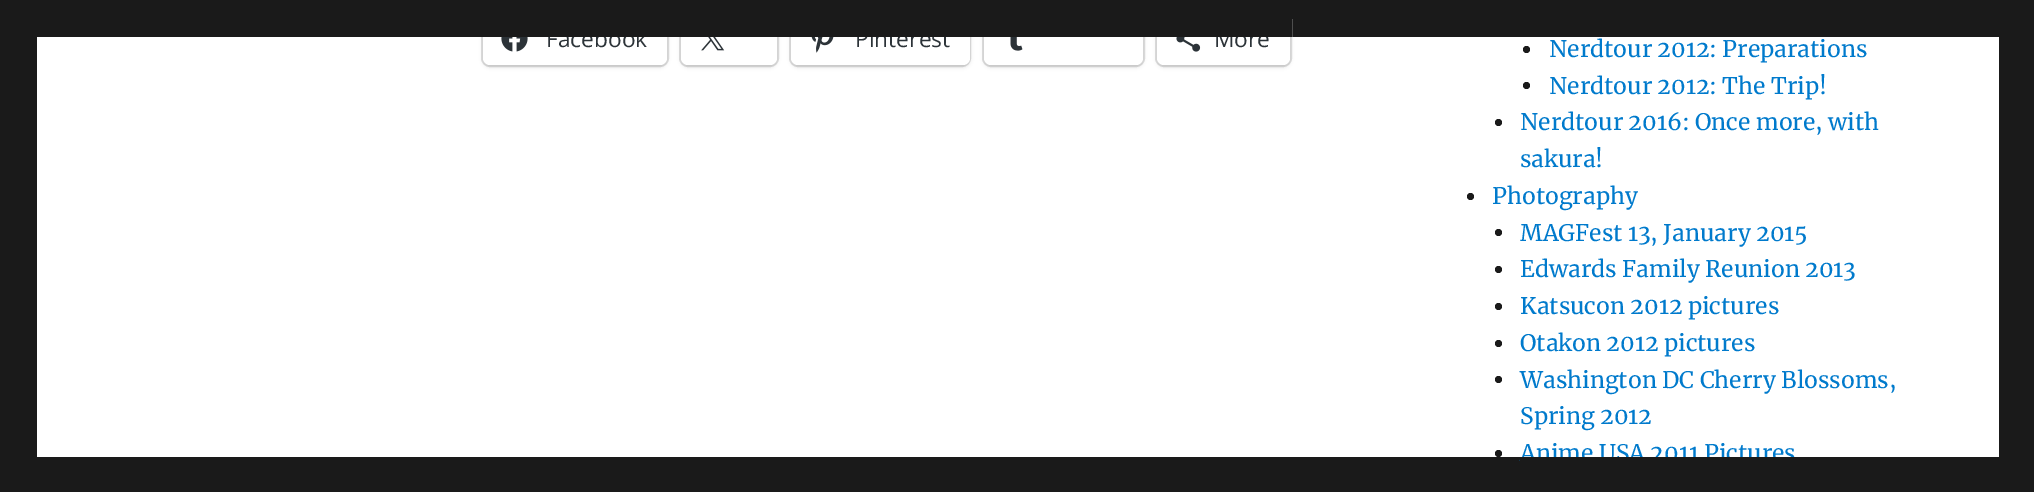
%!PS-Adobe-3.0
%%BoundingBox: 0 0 2034 492
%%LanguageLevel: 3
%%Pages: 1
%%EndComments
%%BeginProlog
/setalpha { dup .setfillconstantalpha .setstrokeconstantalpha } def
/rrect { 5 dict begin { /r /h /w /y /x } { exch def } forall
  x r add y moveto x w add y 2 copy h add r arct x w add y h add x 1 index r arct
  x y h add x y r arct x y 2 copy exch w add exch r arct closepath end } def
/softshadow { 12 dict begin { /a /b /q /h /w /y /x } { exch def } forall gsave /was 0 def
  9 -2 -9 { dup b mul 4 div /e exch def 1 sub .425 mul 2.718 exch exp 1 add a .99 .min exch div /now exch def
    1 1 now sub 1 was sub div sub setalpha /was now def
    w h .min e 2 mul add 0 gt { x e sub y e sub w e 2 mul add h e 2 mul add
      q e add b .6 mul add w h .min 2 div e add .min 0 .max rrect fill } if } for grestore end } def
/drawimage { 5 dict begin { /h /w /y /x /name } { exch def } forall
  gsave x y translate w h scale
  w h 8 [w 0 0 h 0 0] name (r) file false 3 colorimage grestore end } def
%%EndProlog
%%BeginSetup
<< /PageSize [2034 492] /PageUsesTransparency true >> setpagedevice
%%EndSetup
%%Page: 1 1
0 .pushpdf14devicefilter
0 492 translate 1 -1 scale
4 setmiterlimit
0.102 setgray
0 0 2034 492 rectfill
1 setgray
37 37 1962 420 rectfill
0.878 setgray
2 setlinewidth
482 12 186 54 8 rrect stroke
0 setgray
483 14 184 53 7 2 0.12 softshadow
1 setgray
483 12 184 53 7 rrect fill
(images/1.raw) 501 37 27 15 drawimage
0.878 setgray
680 12 98 54 8 rrect stroke
0 setgray
681 14 96 53 7 2 0.12 softshadow
1 setgray
681 12 96 53 7 rrect fill
(images/2.raw) 701 37 24 14 drawimage
0.878 setgray
790 12 180 54 8 rrect stroke
0 setgray
791 14 179 53 7 2 0.12 softshadow
1 setgray
791 12 179 53 7 rrect fill
(images/3.raw) 811 37 23 16 drawimage
0.878 setgray
983 12 161 54 8 rrect stroke
0 setgray
984 14 159 53 7 2 0.12 softshadow
1 setgray
984 12 159 53 7 rrect fill
(images/4.raw) 1010 37 13 14 drawimage
0.878 setgray
1156 12 135 54 8 rrect stroke
0 setgray
1157 14 133 53 7 2 0.12 softshadow
1 setgray
1157 12 133 53 7 rrect fill
(images/5.raw) 1176 37 25 15 drawimage
0.102 setgray
newpath 1526.5 49.5 3.5 0 360 arc closepath fill
newpath 1526.5 85.5 3.5 0 360 arc closepath fill
newpath 1498.5 122.5 3.5 0 360 arc closepath fill
newpath 1470.5 196.5 3.5 0 360 arc closepath fill
newpath 1498.5 232.5 3.5 0 360 arc closepath fill
newpath 1498.5 269.5 3.5 0 360 arc closepath fill
newpath 1498.5 306.5 3.5 0 360 arc closepath fill
newpath 1498.5 343.5 3.5 0 360 arc closepath fill
newpath 1498.5 379.5 3.5 0 360 arc closepath fill
newpath 1498.5 453.5 3.5 0 360 arc closepath fill
/OpenSans-Regular [22.75 0 0 -22.75 0 0] selectfont
0.173 0.2 0.22 setrgbcolor
546 47 moveto (Facebook) show
855 47 moveto (Pinterest) show
1214 47 moveto (More) show
0.102 setgray
481 11 811 26 rectfill
/Merriweather-Regular [22.75 0 0 -22.75 0 0] selectfont
0 0.478 0.8 setrgbcolor
1549 57 moveto (Nerdtour 2012: Preparations) show
1549 94 moveto (Nerdtour 2012: The Trip!) show
1520 130 moveto (Nerdtour 2016: Once more, with) show
1520 167 moveto (sakura!) show
1492 204 moveto (Photography) show
1520 241 moveto (MAGFest 13, January 2015) show
1520 277 moveto (Edwards Family Reunion 2013) show
1520 314 moveto (Katsucon 2012 pictures) show
1520 351 moveto (Otakon 2012 pictures) show
1520 388 moveto (Washington DC Cherry Blossoms,) show
1520 424 moveto (Spring 2012) show
1520 461 moveto (Anime USA 2011 Pictures) show
0.102 setgray
1520 457 276 5 rectfill
.poppdf14devicefilter showpage
%%EOF
